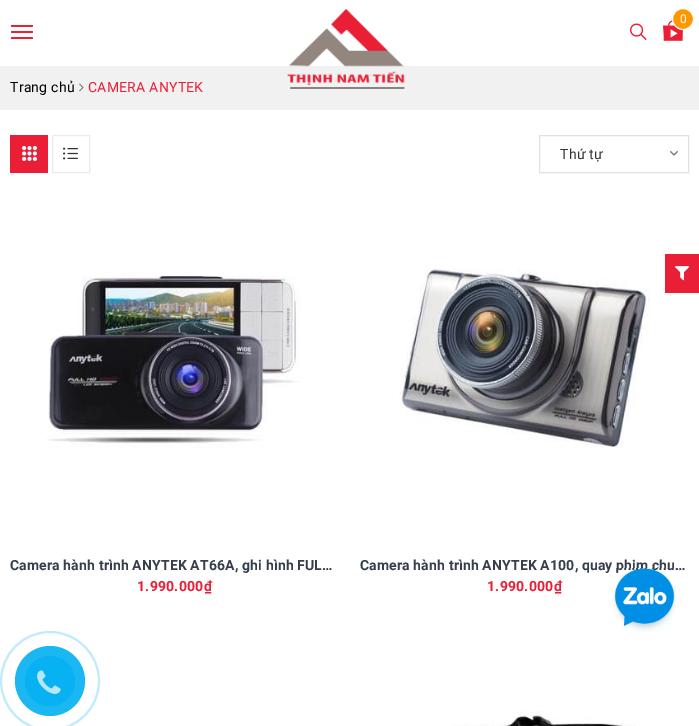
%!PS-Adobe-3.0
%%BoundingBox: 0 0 699 726
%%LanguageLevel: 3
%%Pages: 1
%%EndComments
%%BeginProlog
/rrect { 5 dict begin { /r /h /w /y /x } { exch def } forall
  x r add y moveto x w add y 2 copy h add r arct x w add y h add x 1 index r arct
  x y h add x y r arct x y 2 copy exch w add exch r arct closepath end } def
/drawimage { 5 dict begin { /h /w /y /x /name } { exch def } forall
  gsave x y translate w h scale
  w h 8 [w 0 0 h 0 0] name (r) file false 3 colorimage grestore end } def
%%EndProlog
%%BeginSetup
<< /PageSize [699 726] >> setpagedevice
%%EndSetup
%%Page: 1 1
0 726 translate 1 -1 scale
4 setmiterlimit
1 setgray
0 0 699 726 rectfill
0.945 setgray
0 66 699 44 rectfill
(images/1.raw) 287 9 118 80 drawimage
(images/2.raw) 663 20 21 21 drawimage
1 0.596 0 setrgbcolor
newpath 683 19 10.5 0 360 arc closepath gsave fill grestore
1 setgray
stroke
(images/3.raw) 630 23 17 17 drawimage
0.918 0.118 0.208 setrgbcolor
11 25 22 2 1 rrect fill
11 31 22 2 1 rrect fill
11 37 22 2 1 rrect fill
(images/4.raw) 79 83 5 9 drawimage
10 135 38 38 rectfill
(images/5.raw) 22 146 15 15 drawimage
0.922 setgray
52.5 135.5 37 37 rectstroke
(images/6.raw) 63 147 15 13 drawimage
(images/7.raw) 670 151 8 5 drawimage
0.882 setgray
539.5 135.5 149 37 rectstroke
(images/8.raw) 46 276 255 172 drawimage
(images/9.raw) 399 269 251 179 drawimage
(images/10.raw) 452 711 184 15 drawimage
0.918 0.118 0.208 setrgbcolor
665 254 34 39 rectfill
(images/11.raw) 675 266 15 15 drawimage
0.749 0.922 0.988 setrgbcolor
2 setlinewidth
newpath 50 681 49 0 360 arc closepath stroke
0.102 0.718 0.953 setrgbcolor
newpath 50 681 35 0 360 arc closepath fill
0.031 0.694 0.949 setrgbcolor
newpath 50 681 25 0 360 arc closepath fill
(images/13.raw) 37 670 24 24 drawimage
/Roboto-Regular [12 0 0 -12 0 0] selectfont
1 setgray
680 23 moveto 0.25 0 (0) ashow
/Roboto-Regular [14 0 0 -14 0 0] selectfont
0 setgray
10 92 moveto 0.25 0 (Trang chủ) ashow
0.918 0.118 0.208 setrgbcolor
88 92 moveto 0.25 0 (CAMERA ANYTEK) ashow
0.2 setgray
560 159 moveto 0.25 0 (Thứ tự) ashow
/Roboto-Bold [14 0 0 -14 0 0] selectfont
0.212 0.247 0.302 setrgbcolor
10 570 moveto 0.15 0 (Camera hành trình ANYTEK AT66A, ghi hình FUL…) ashow
0.918 0.118 0.208 setrgbcolor
137 591 moveto 0.25 0 (1.990.000₫) ashow
0.212 0.247 0.302 setrgbcolor
360 570 moveto 0.15 0 (Camera hành trình ANYTEK A100, quay phim chu…) ashow
0.918 0.118 0.208 setrgbcolor
487 591 moveto 0.25 0 (1.990.000₫) ashow
(images/12.raw) 613 568 63 64 drawimage
showpage
%%EOF
